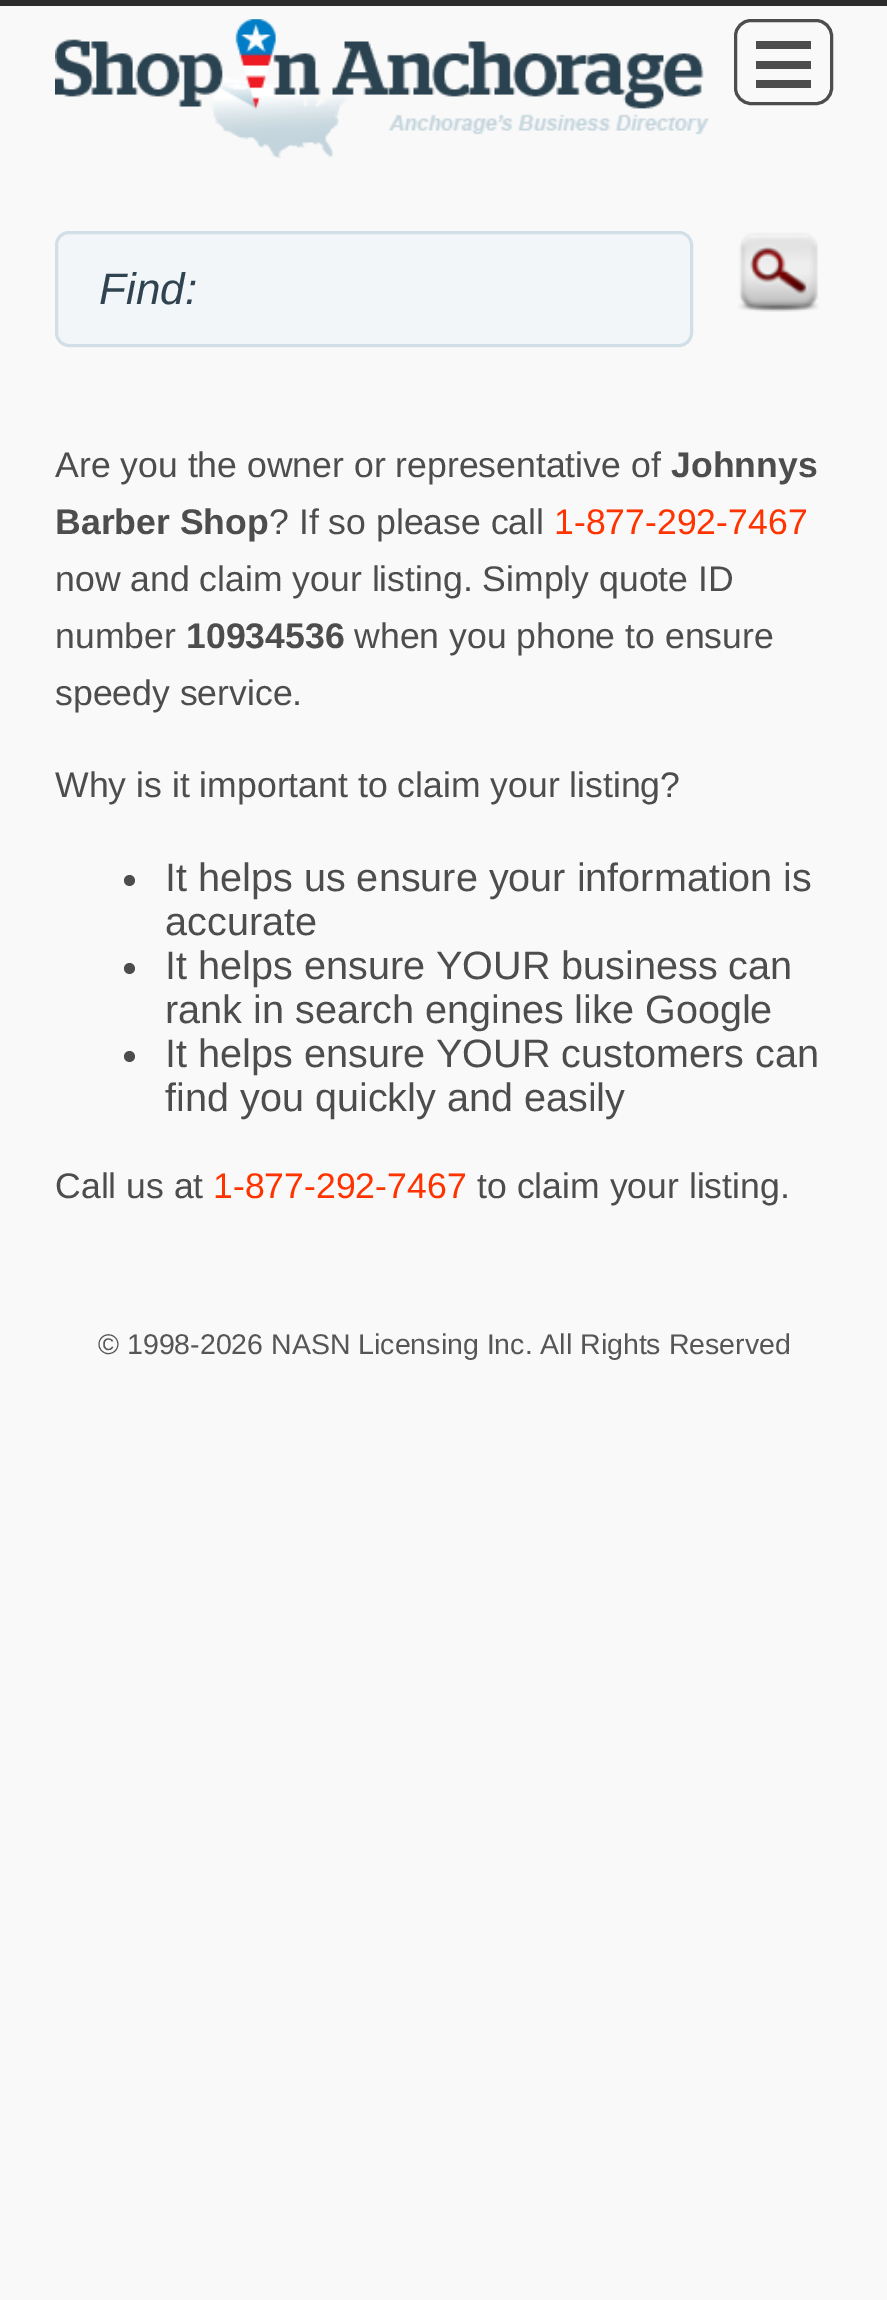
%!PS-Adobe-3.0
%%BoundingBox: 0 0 887 2300
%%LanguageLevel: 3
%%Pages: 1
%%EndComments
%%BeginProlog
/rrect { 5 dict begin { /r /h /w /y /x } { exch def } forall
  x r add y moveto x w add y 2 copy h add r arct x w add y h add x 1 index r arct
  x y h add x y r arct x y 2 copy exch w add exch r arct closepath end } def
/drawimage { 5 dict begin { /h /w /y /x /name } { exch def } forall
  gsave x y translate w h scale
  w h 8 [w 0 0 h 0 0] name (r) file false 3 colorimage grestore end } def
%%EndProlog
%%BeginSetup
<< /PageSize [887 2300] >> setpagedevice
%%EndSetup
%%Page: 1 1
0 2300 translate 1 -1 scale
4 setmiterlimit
0.976 setgray
0 0 887 2300 rectfill
0.176 setgray
0 0 887 6 rectfill
(images/1.raw) 55 19 654 139 drawimage
0.302 setgray
3 setlinewidth
735.5 20.5 96 83 15.5 rrect stroke
756 41 55 8 rectfill
756 61 55 8 rectfill
756 80 55 8 rectfill
0.949 0.965 0.973 setrgbcolor
56.5 232.5 635 113 12.5 rrect gsave fill grestore
0.824 0.875 0.906 setrgbcolor
stroke
(images/2.raw) 738 232 81 80 drawimage
0.302 setgray
newpath 129.5 880.5 5.5 0 360 arc closepath fill
newpath 129.5 968.5 5.5 0 360 arc closepath fill
newpath 129.5 1056.5 5.5 0 360 arc closepath fill
/LiberationSans-Italic [44 0 0 -44 0 0] selectfont
0.184 0.263 0.318 setrgbcolor
99 304 moveto (Find:) show
/LiberationSans-Regular [35.6 0 0 -35.6 0 0] selectfont
0.302 setgray
55 477 moveto (Are you the owner or representative of) show
/LiberationSans-Bold [35.6 0 0 -35.6 0 0] selectfont
671 477 moveto (Johnnys) show
55 534 moveto (Barber Shop) show
/LiberationSans-Regular [35.6 0 0 -35.6 0 0] selectfont
269 534 moveto (? If so please call) show
1 0.2 0 setrgbcolor
554 534 moveto (1-877-292-7467) show
0.302 setgray
55 591 moveto (now and claim your listing. Simply quote ID) show
55 648 moveto (number) show
/LiberationSans-Bold [35.6 0 0 -35.6 0 0] selectfont
186 648 moveto (10934536) show
/LiberationSans-Regular [35.6 0 0 -35.6 0 0] selectfont
354 648 moveto (when you phone to ensure) show
55 705 moveto (speedy service.) show
55 797 moveto (Why is it important to claim your listing?) show
/LiberationSans-Regular [39.6 0 0 -39.6 0 0] selectfont
165 891 moveto (It helps us ensure your information is) show
165 935 moveto (accurate) show
165 979 moveto (It helps ensure YOUR business can) show
165 1023 moveto (rank in search engines like Google) show
165 1067 moveto (It helps ensure YOUR customers can) show
165 1111 moveto (find you quickly and easily) show
/LiberationSans-Regular [35.6 0 0 -35.6 0 0] selectfont
55 1198 moveto (Call us at) show
1 0.2 0 setrgbcolor
213 1198 moveto (1-877-292-7467) show
0.302 setgray
477 1198 moveto (to claim your listing.) show
/LiberationSans-Regular [28.5 0 0 -28.5 0 0] selectfont
0.337 setgray
98 1354 moveto (© 1998-2026 NASN Licensing Inc. All Rights Reserved) show
showpage
%%EOF
